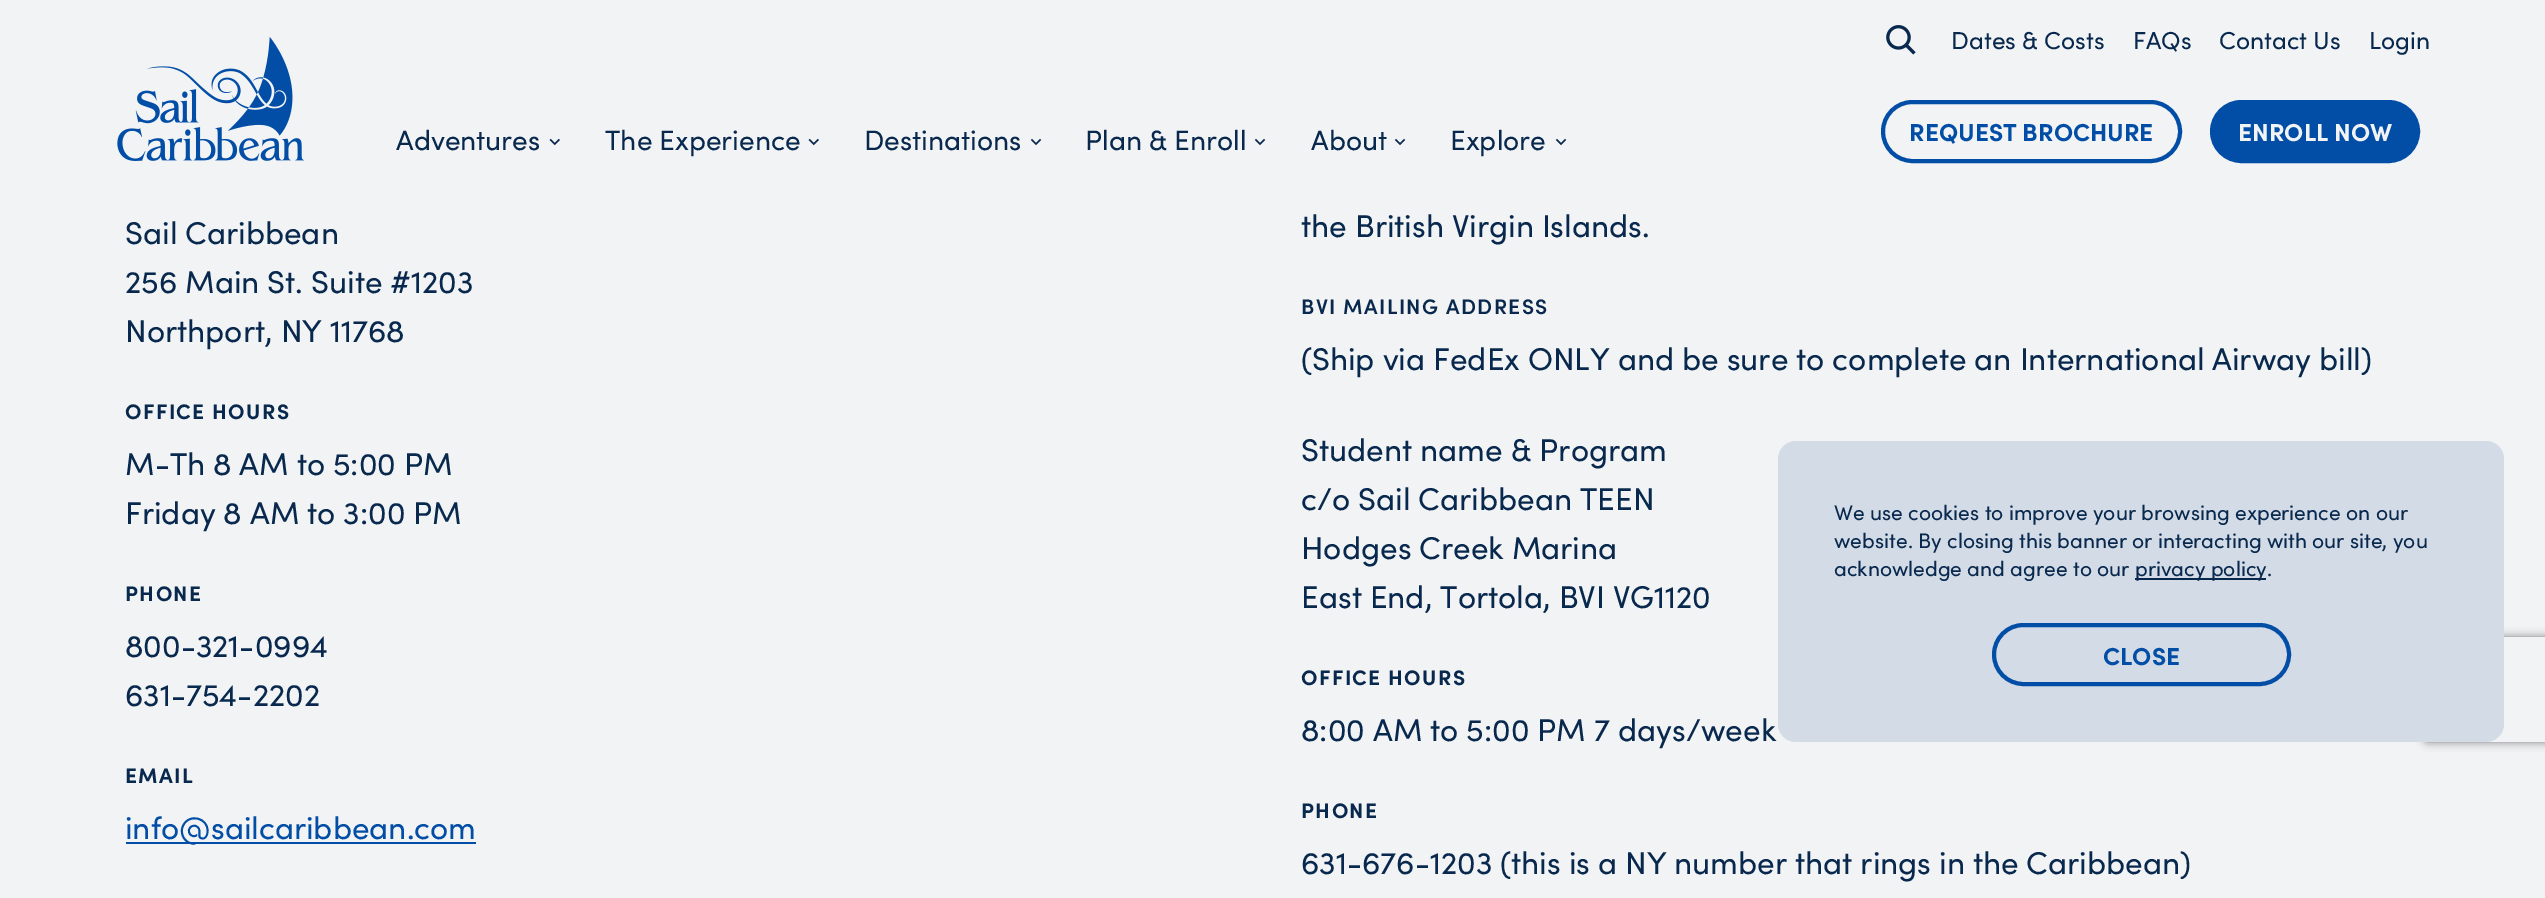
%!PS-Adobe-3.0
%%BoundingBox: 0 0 2545 898
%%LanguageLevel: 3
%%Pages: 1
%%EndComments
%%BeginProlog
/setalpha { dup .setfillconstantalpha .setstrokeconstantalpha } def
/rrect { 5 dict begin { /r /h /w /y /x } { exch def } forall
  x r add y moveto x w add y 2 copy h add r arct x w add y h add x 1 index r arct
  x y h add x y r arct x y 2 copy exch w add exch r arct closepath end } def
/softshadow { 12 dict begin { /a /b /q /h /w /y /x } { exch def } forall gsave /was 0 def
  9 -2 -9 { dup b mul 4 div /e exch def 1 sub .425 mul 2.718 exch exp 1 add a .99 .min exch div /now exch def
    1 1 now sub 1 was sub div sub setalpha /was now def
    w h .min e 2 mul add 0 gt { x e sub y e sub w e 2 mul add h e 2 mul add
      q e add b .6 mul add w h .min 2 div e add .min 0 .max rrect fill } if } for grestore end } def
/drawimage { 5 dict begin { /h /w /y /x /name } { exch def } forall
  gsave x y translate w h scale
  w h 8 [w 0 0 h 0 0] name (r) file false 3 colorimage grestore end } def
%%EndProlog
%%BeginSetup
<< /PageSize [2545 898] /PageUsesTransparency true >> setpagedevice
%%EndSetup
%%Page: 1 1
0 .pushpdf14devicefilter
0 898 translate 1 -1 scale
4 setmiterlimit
0.949 0.953 0.961 setrgbcolor
0 0 2545 898 rectfill
(images/1.raw) 117 37 187 124 drawimage
(images/2.raw) 549 138 11 8 drawimage
(images/2.raw) 808 138 11 8 drawimage
(images/3.raw) 1030 138 12 8 drawimage
(images/3.raw) 1254 138 12 8 drawimage
(images/3.raw) 1394 138 12 8 drawimage
(images/3.raw) 1555 138 12 8 drawimage
(images/4.raw) 1886 25 30 30 drawimage
0.008 0.302 0.647 setrgbcolor
4 setlinewidth
1883 102 297 59 29.5 rrect stroke
2212 102 206 59 29.5 rrect gsave fill grestore
stroke
126 842 350 2 rectfill
gsave
newpath 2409 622 moveto 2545 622 lineto 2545 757 lineto 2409 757 lineto closepath 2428 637 moveto 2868 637 lineto 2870 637 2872 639 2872 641 curveto 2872 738 lineto 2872 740 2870 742 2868 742 curveto 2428 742 lineto 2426 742 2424 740 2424 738 curveto 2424 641 lineto 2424 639 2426 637 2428 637 curveto closepath eoclip newpath
0.502 setgray
2424 637 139 105 4 4.5 1 softshadow
grestore
0.827 0.863 0.902 setrgbcolor
1778 441 726 301 18 rrect fill
0.031 0.157 0.302 setrgbcolor
2135 578 131 2 rectfill
0.008 0.302 0.647 setrgbcolor
1994 625 295 59 29.5 rrect stroke
/Sofia-Regular [28 0 0 -28 0 0] selectfont
0.031 0.157 0.302 setrgbcolor
396 150 moveto (Adventures) show
605 150 moveto (The Experience) show
864 150 moveto (Destinations) show
1085 150 moveto (Plan & Enroll) show
1311 150 moveto (About) show
1450 150 moveto (Explore) show
/Sofia-Regular [24.5 0 0 -24.5 0 0] selectfont
1951 49 moveto (Dates & Costs) show
2133 49 moveto (FAQs) show
2219 49 moveto (Contact Us) show
2369 49 moveto (Login) show
/Sofia-Bold [24.5 0 0 -24.5 0 0] selectfont
0.008 0.302 0.647 setrgbcolor
1909 141 moveto (REQUEST BROCHURE) show
0.949 0.953 0.961 setrgbcolor
2238 141 moveto (ENROLL NOW) show
/Sofia-Regular [31.5 0 0 -31.5 0 0] selectfont
0.031 0.157 0.302 setrgbcolor
125 244 moveto (Sail Caribbean) show
125 293 moveto (256 Main St. Suite #1203) show
125 342 moveto (Northport, NY 11768) show
/Sofia-Bold [21 0 0 -21 0 0] selectfont
125 419 moveto 1.4 0 (OFFICE HOURS) ashow
/Sofia-Regular [31.5 0 0 -31.5 0 0] selectfont
125 475 moveto (M-Th 8 AM to 5:00 PM) show
125 524 moveto (Friday 8 AM to 3:00 PM) show
/Sofia-Bold [21 0 0 -21 0 0] selectfont
125 601 moveto 1.4 0 (PHONE) ashow
/Sofia-Regular [31.5 0 0 -31.5 0 0] selectfont
125 657 moveto (800-321-0994) show
125 706 moveto (631-754-2202) show
/Sofia-Bold [21 0 0 -21 0 0] selectfont
125 783 moveto 1.4 0 (EMAIL) ashow
/Sofia-Regular [31.5 0 0 -31.5 0 0] selectfont
0.008 0.302 0.647 setrgbcolor
125 839 moveto (info@sailcaribbean.com) show
0.031 0.157 0.302 setrgbcolor
1301 237 moveto (the British Virgin Islands.) show
/Sofia-SemiBold [21 0 0 -21 0 0] selectfont
1301 314 moveto 1.4 0 (BVI MAILING ADDRESS) ashow
/Sofia-Regular [31.5 0 0 -31.5 0 0] selectfont
1301 370 moveto (\(Ship via FedEx ONLY and be sure to complete an International Airway bill\)) show
1301 461 moveto (Student name & Program) show
1301 510 moveto (c/o Sail Caribbean TEEN) show
1301 559 moveto (Hodges Creek Marina) show
1301 608 moveto (East End, Tortola, BVI VG1120) show
/Sofia-Bold [21 0 0 -21 0 0] selectfont
1301 685 moveto 1.4 0 (OFFICE HOURS) ashow
/Sofia-Regular [31.5 0 0 -31.5 0 0] selectfont
1301 741 moveto (8:00 AM to 5:00 PM 7 days/week) show
/Sofia-Bold [21 0 0 -21 0 0] selectfont
1301 818 moveto 1.4 0 (PHONE) ashow
/Sofia-Regular [31.5 0 0 -31.5 0 0] selectfont
1301 874 moveto (631-676-1203 \(this is a NY number that rings in the Caribbean\)) show
/Sofia-Regular [21 0 0 -21 0 0] selectfont
1834 520 moveto (We use cookies to improve your browsing experience on our) show
1834 548 moveto (website. By closing this banner or interacting with our site, you) show
1834 576 moveto (acknowledge and agree to our) show
2135 576 moveto (privacy policy.) show
/Sofia-Bold [24.5 0 0 -24.5 0 0] selectfont
0.008 0.302 0.647 setrgbcolor
2103 665 moveto (CLOSE) show
.poppdf14devicefilter showpage
%%EOF
